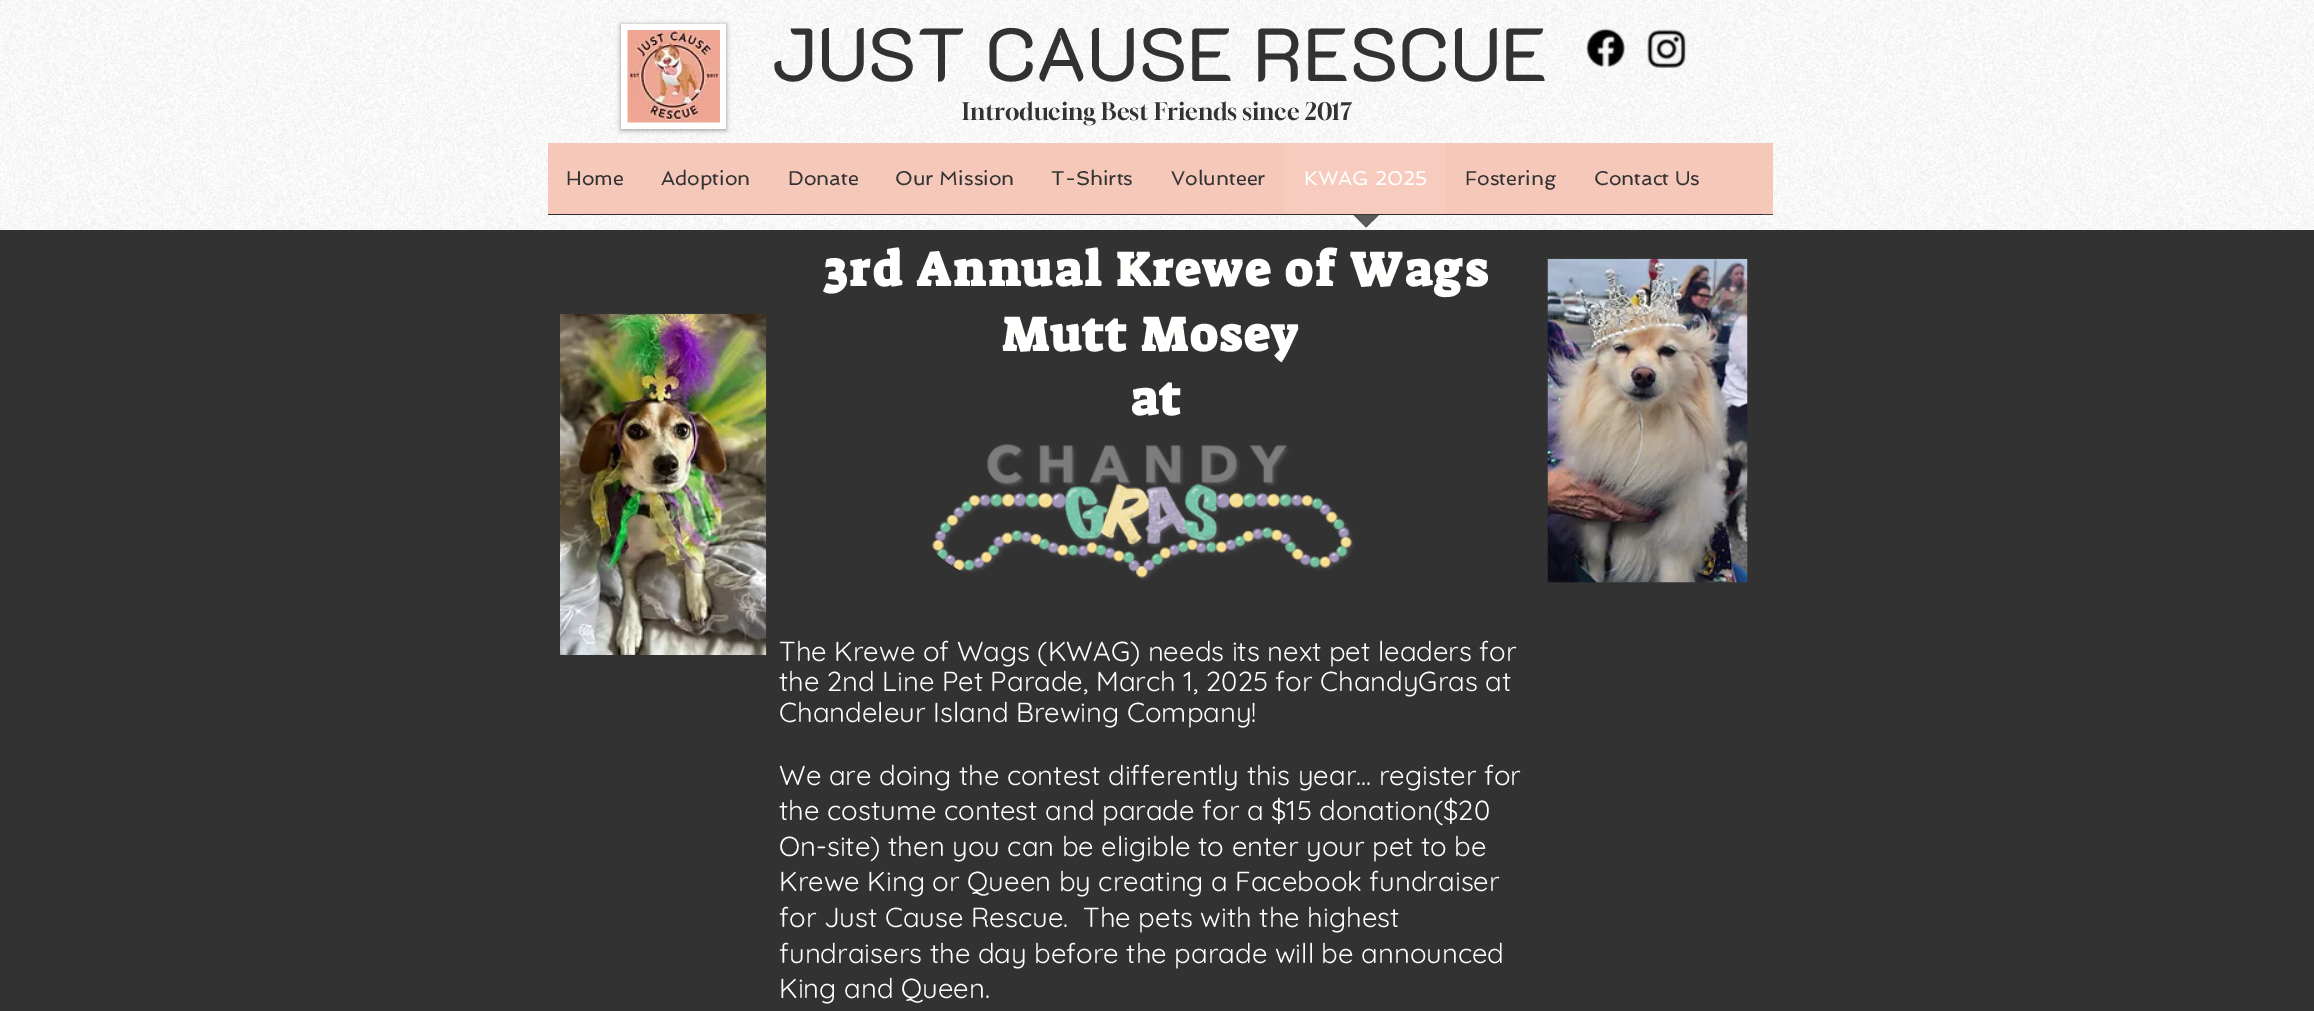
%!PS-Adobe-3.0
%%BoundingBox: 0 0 2314 1011
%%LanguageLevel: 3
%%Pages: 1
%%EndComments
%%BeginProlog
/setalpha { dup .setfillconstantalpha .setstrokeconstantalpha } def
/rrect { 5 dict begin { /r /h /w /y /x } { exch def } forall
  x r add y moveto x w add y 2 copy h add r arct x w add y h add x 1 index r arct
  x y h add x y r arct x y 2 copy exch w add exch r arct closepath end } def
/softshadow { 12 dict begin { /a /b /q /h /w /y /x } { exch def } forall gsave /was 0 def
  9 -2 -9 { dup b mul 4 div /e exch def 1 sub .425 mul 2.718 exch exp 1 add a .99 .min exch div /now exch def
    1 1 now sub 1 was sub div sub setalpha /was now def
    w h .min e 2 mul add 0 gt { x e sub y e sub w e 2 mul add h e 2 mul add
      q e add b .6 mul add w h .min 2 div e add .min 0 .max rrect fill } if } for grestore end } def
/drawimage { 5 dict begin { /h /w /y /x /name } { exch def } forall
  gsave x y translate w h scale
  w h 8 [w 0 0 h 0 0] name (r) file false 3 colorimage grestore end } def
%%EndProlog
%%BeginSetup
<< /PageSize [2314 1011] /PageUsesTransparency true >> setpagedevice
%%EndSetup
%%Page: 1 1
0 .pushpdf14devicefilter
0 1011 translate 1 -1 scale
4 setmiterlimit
0.196 setgray
0 0 2314 1011 rectfill
1 setgray
0 0 2314 230 rectfill
(images/1.raw) 0 0 2314 230 drawimage
0 setgray
621 25 105 105 0 2.5 0.4 softshadow
1 setgray
621 24 105 105 rectfill
(images/2.raw) 627 30 93 93 drawimage
(images/3.raw) 1586 28 40 39 drawimage
(images/4.raw) 1647 29 39 39 drawimage
0.965 0.784 0.729 setrgbcolor
548 143 1225 71 rectfill
0.302 0.271 0.259 setrgbcolor
1763 214 10 1 rectfill
0.184 0.176 0.176 setrgbcolor
548 214 1215 1 rectfill
0.969 0.8 0.749 setrgbcolor
1285 143 161 71 rectfill
0.82 setalpha
0.157 setgray
newpath 1352.5 214 moveto 1380 214 lineto 1366 227.5 lineto closepath fill
0.07 setalpha
1 setgray
newpath 1354 214 moveto 1379 214 lineto 1366 226 lineto closepath fill
1 setalpha
(images/5.raw) 560 313 207 342 drawimage
(images/6.raw) 1547 258 201 325 drawimage
(images/7.raw) 932 443 423 137 drawimage
/K2D-Regular [75 0 0 -75 0 0] selectfont
0.196 setgray
771 81 moveto (JUST CAUSE RESCUE) show
/Gloock-Regular [23.75 0 0 -23.75 0 0] selectfont
962 120 moveto (Introducing Best Friends since 2017) show
/Spinnaker-Regular [20 0 0 -20 0 0] selectfont
566 185 moveto (Home) show
661 185 moveto (Adoption) show
788 185 moveto (Donate) show
895 185 moveto (Our Mission) show
1051 185 moveto (T-Shirts) show
1171 185 moveto (Volunteer) show
1 1 0.996 setrgbcolor
1304 185 moveto (KWAG 2025) show
0.196 setgray
1465 185 moveto (Fostering) show
1594 185 moveto (Contact Us) show
/SuezOne-Bold [48.75 0 0 -48.75 0 0] selectfont
1 1 0.996 setrgbcolor
824 286 moveto 2.4 0 (3rd Annual Krewe of Wags) ashow
1002 351 moveto 2.4 0 (Mutt Mosey) ashow
1131 415 moveto 2.4 0 (at) ashow
/Quicksand-Regular [27.5 0 0 -27.5 0 0] selectfont
779 661 moveto (The Krewe of Wags \(KWAG\) needs its next pet leaders for) show
779 691 moveto (the 2nd Line Pet Parade, March 1, 2025 for ChandyGras at) show
779 722 moveto (Chandeleur Island Brewing Company!) show
779 785 moveto (We are doing the contest differently this year... register for) show
779 820 moveto (the costume contest and parade for a $15 donation\($20) show
779 856 moveto (On-site\) then you can be eligible to enter your pet to be) show
779 891 moveto (Krewe King or Queen by creating a Facebook fundraiser) show
779 927 moveto (for Just Cause Rescue.  The pets with the highest) show
779 963 moveto (fundraisers the day before the parade will be announced) show
779 998 moveto (King and Queen.) show
.poppdf14devicefilter showpage
%%EOF
